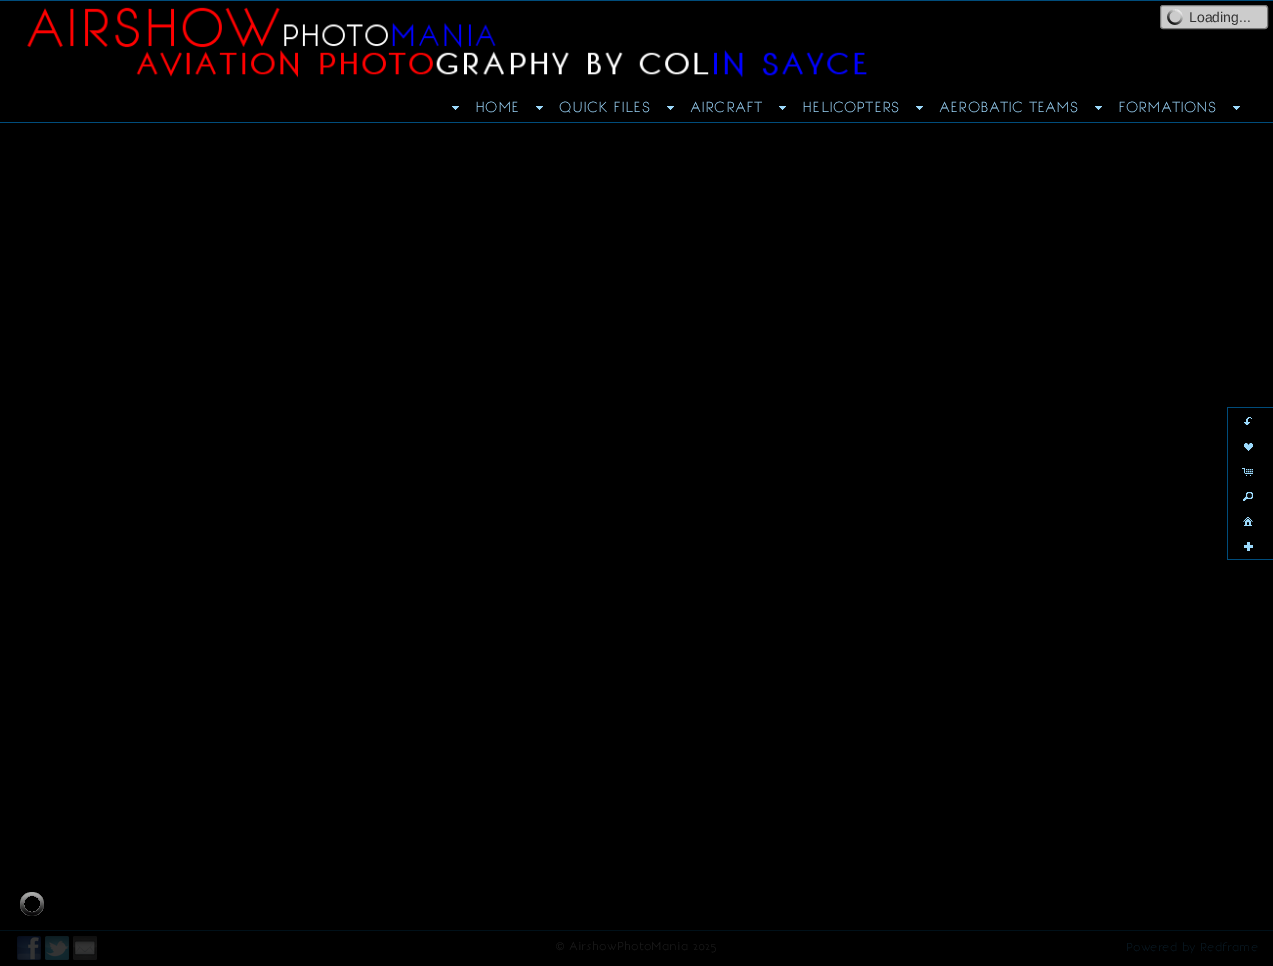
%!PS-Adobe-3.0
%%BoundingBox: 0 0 1273 966
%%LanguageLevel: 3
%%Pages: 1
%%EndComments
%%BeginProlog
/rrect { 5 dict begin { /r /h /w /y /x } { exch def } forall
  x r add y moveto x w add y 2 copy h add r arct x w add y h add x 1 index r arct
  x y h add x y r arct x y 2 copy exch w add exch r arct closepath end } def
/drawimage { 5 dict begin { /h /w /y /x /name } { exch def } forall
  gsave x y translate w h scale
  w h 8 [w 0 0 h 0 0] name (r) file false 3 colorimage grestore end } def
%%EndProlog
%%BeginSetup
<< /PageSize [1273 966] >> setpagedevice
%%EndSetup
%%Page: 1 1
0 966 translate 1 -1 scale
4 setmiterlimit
0 setgray
0 0 1273 966 rectfill
0.8 setgray
1160.5 5.5 107 23 2.5 rrect gsave fill grestore
0.478 setgray
stroke
(images/1.raw) 1167 9 16 16 drawimage
0 0.298 0.482 setrgbcolor
0 0 1273 1 rectfill
0 122 1273 1 rectfill
(images/2.raw) 27 7 840 71 drawimage
(images/3.raw) 452 106 7 4 drawimage
(images/3.raw) 536 106 7 4 drawimage
(images/3.raw) 667 106 7 4 drawimage
(images/3.raw) 779 106 7 4 drawimage
(images/3.raw) 916 106 7 4 drawimage
(images/3.raw) 1095 106 7 4 drawimage
(images/3.raw) 1233 106 7 4 drawimage
0 0.063 0.098 setrgbcolor
0 930 1273 1 rectfill
(images/4.raw) 17 936 24 24 drawimage
(images/5.raw) 45 936 24 24 drawimage
(images/6.raw) 73 936 24 24 drawimage
0 0.298 0.482 setrgbcolor
1227 407 46 1 rectfill
1227 559 46 1 rectfill
1227 407 1 153 rectfill
(images/7.raw) 1244 417 8 8 drawimage
(images/8.raw) 1244 443 9 8 drawimage
(images/9.raw) 1242 468 11 8 drawimage
(images/10.raw) 1243 492 10 9 drawimage
(images/11.raw) 1243 517 10 9 drawimage
(images/12.raw) 1244 542 9 9 drawimage
(images/13.raw) 20 892 24 24 drawimage
/LiberationSans-Regular [14 0 0 -14 0 0] selectfont
0.2 setgray
1189 22 moveto (Loading...) show
/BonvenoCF-Light [14 0 0 -14 0 0] selectfont
0.624 0.855 1 setrgbcolor
475 112 moveto (HOME) show
559 112 moveto (QUICK FILES) show
690 112 moveto (AIRCRAFT) show
802 112 moveto (HELICOPTERS) show
939 112 moveto (AEROBATIC TEAMS) show
1118 112 moveto (FORMATIONS) show
/LiberationSans-Regular [11 0 0 -11 0 0] selectfont
0.122 setgray
556 950 moveto (©) show
/BonvenoCF-Light [11 0 0 -11 0 0] selectfont
569 950 moveto (AirshowPhotoMania 2025) show
0.039 0.11 0.153 setrgbcolor
1126 951 moveto (Powered by Redframe) show
showpage
%%EOF
